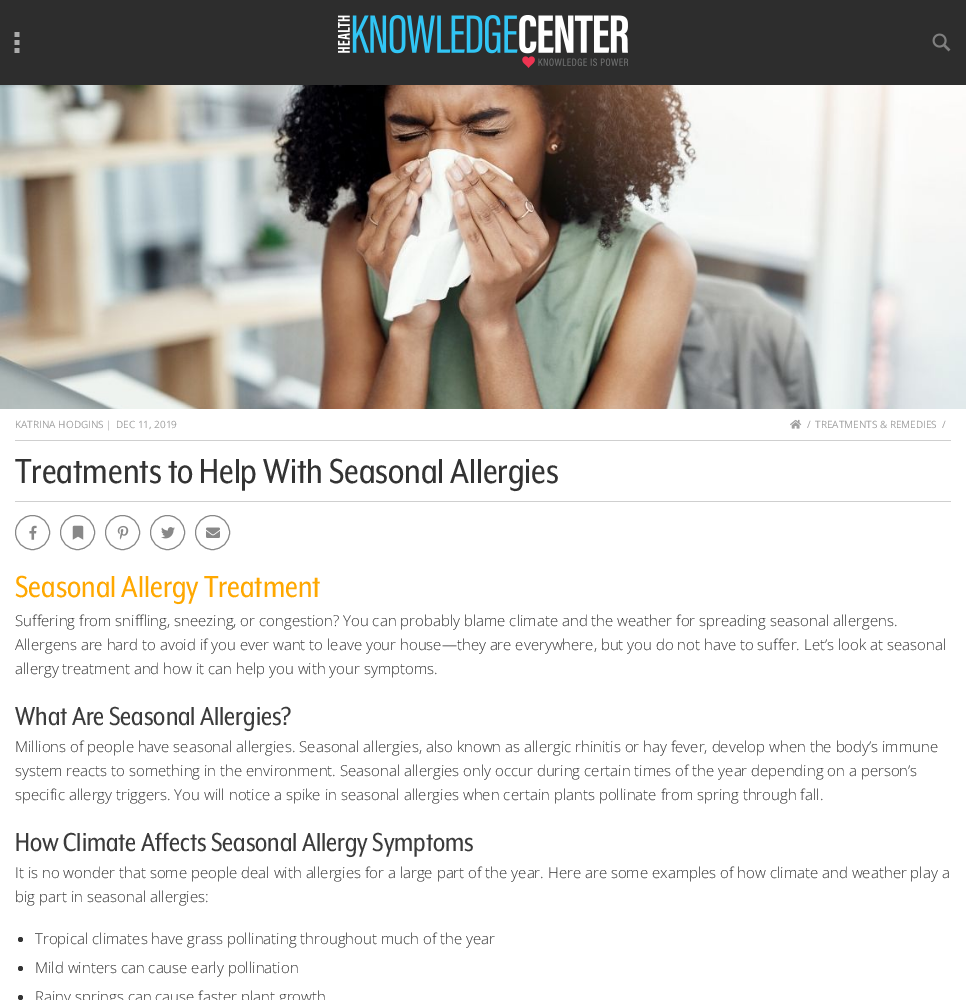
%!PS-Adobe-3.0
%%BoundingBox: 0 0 966 1000
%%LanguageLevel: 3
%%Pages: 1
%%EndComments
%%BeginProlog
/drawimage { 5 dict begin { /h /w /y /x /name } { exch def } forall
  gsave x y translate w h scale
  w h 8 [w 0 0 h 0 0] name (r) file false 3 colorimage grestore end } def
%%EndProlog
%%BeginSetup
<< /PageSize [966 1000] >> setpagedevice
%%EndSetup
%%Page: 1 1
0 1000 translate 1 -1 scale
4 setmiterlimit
1 setgray
0 0 966 1000 rectfill
0.176 setgray
0 0 966 85 rectfill
(images/1.raw) 14 32 6 21 drawimage
(images/2.raw) 338 15 290 53 drawimage
(images/3.raw) 932 33 19 19 drawimage
(images/4.raw) 0 85 966 324 drawimage
(images/5.raw) 790 419 12 10 drawimage
0.812 setgray
15 440 936 1 rectfill
15 501 936 1 rectfill
0.533 setgray
newpath 32.5 532.5 17 0 360 arc closepath stroke
(images/6.raw) 29 525 8 15 drawimage
newpath 77.5 532.5 17 0 360 arc closepath stroke
(images/7.raw) 72 525 12 15 drawimage
newpath 122.5 532.5 17 0 360 arc closepath stroke
(images/8.raw) 117 525 12 15 drawimage
newpath 167.5 532.5 17 0 360 arc closepath stroke
(images/9.raw) 161 527 14 12 drawimage
newpath 212.5 532.5 17 0 360 arc closepath stroke
(images/10.raw) 206 527 14 11 drawimage
0.2 setgray
newpath 20.5 939.5 2.5 0 360 arc closepath fill
newpath 20.5 968.5 2.5 0 360 arc closepath fill
newpath 20.5 997.5 2.5 0 360 arc closepath fill
/OpenSans-Regular [10 0 0 -10 0 0] selectfont
0.624 setgray
15 428 moveto (KATRINA HODGINS) show
106 428 moveto (|) show
116 428 moveto (DEC 11, 2019) show
807 428 moveto (/) show
815 428 moveto (TREATMENTS & REMEDIES) show
942 428 moveto (/) show
/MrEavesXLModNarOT-Regular [40 0 0 -40 0 0] selectfont
0.2 setgray
15 483 moveto (Treatments to Help With Seasonal Allergies) show
/MrEavesXLModNarOT-Regular [35 0 0 -35 0 0] selectfont
1 0.659 0 setrgbcolor
15 597 moveto (Seasonal Allergy Treatment) show
/OpenSans-Light [15 0 0 -15 0 0] selectfont
0.2 setgray
15 626 moveto (Suffering from sniffling, sneezing, or congestion? You can probably blame climate and the weather for spreading seasonal allergens.) show
15 650 moveto (Allergens are hard to avoid if you ever want to leave your house—they are everywhere, but you do not have to suffer. Let’s look at seasonal) show
15 674 moveto (allergy treatment and how it can help you with your symptoms.) show
/MrEavesXLModNarOT-Regular [30 0 0 -30 0 0] selectfont
0.231 setgray
15 725 moveto (What Are Seasonal Allergies?) show
/OpenSans-Light [15 0 0 -15 0 0] selectfont
0.2 setgray
15 752 moveto (Millions of people have seasonal allergies. Seasonal allergies, also known as allergic rhinitis or hay fever, develop when the body’s immune) show
15 776 moveto (system reacts to something in the environment. Seasonal allergies only occur during certain times of the year depending on a person’s) show
15 800 moveto (specific allergy triggers. You will notice a spike in seasonal allergies when certain plants pollinate from spring through fall.) show
/MrEavesXLModNarOT-Regular [30 0 0 -30 0 0] selectfont
0.231 setgray
15 851 moveto (How Climate Affects Seasonal Allergy Symptoms) show
/OpenSans-Light [15 0 0 -15 0 0] selectfont
0.2 setgray
15 878 moveto (It is no wonder that some people deal with allergies for a large part of the year. Here are some examples of how climate and weather play a) show
15 902 moveto (big part in seasonal allergies:) show
35 944 moveto (Tropical climates have grass pollinating throughout much of the year) show
35 973 moveto (Mild winters can cause early pollination) show
35 1002 moveto (Rainy springs can cause faster plant growth) show
showpage
%%EOF
